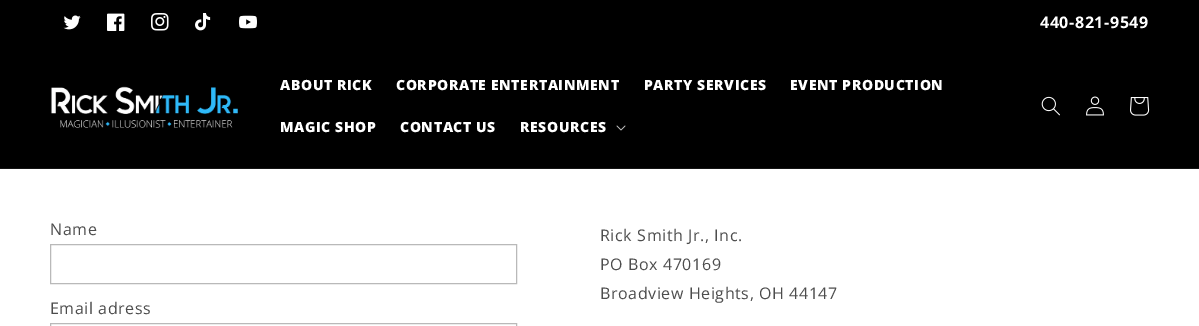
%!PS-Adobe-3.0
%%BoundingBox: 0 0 1199 326
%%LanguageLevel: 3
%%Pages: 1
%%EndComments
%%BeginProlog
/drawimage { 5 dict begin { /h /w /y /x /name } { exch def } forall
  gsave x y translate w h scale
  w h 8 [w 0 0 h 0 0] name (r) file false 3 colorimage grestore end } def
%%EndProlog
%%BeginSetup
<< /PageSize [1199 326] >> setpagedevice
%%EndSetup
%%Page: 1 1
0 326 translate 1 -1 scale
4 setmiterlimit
1 setgray
0 0 1199 326 rectfill
0 setgray
0 0 1199 168 rectfill
(images/1.raw) 63 15 18 15 drawimage
(images/2.raw) 107 13 18 18 drawimage
(images/3.raw) 151 13 18 18 drawimage
(images/4.raw) 195 13 16 18 drawimage
(images/5.raw) 239 15 18 14 drawimage
0.078 setgray
0 168 1199 1 rectfill
(images/6.raw) 50 86 188 42 drawimage
(images/7.raw) 616 125 10 6 drawimage
(images/8.raw) 1041 96 19 20 drawimage
(images/9.raw) 1086 96 18 20 drawimage
(images/10.raw) 1130 97 20 19 drawimage
0.725 setgray
50.5 244.5 466 39 rectstroke
50.5 323.5 466 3 rectstroke
/OpenSans-Bold [16 0 0 -16 0 0] selectfont
1 setgray
1040 28 moveto 0.6 0 (440-821-9549) ashow
/OpenSans-ExtraBold [14 0 0 -14 0 0] selectfont
280 90 moveto 0.6 0 (ABOUT RICK) ashow
396 90 moveto 0.6 0 (CORPORATE ENTERTAINMENT) ashow
644 90 moveto 0.6 0 (PARTY SERVICES) ashow
790 90 moveto 0.6 0 (EVENT PRODUCTION) ashow
280 132 moveto 0.6 0 (MAGIC SHOP) ashow
400 132 moveto 0.6 0 (CONTACT US) ashow
520 132 moveto 0.6 0 (RESOURCES) ashow
/OpenSans-Regular [16 0 0 -16 0 0] selectfont
0.302 setgray
50 235 moveto 0.6 0 (Name) ashow
50 314 moveto 0.6 0 (Email adress) ashow
600 241 moveto 0.6 0 (Rick Smith Jr., Inc.) ashow
600 270 moveto 0.6 0 (PO Box 470169) ashow
600 299 moveto 0.6 0 (Broadview Heights, OH 44147) ashow
showpage
%%EOF
